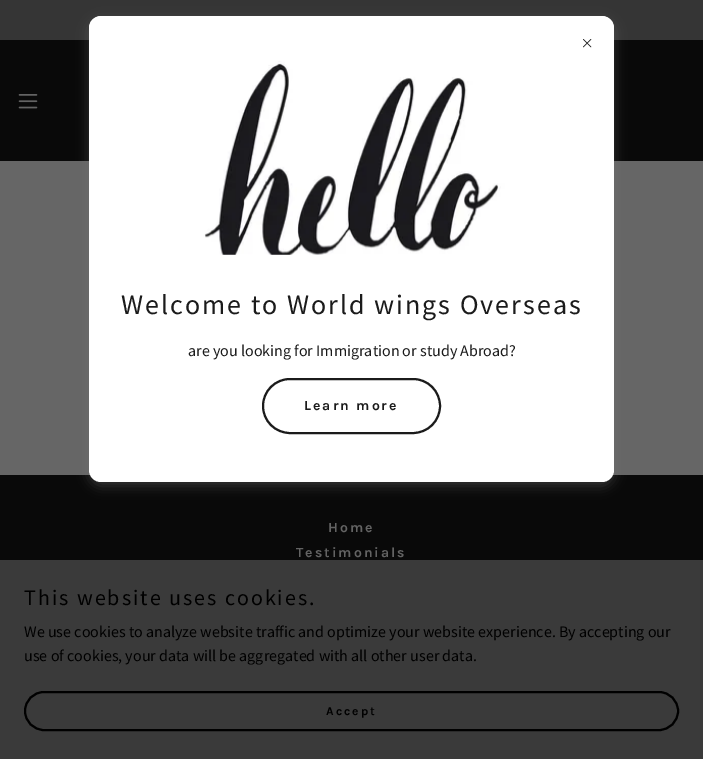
%!PS-Adobe-3.0
%%BoundingBox: 0 0 703 759
%%LanguageLevel: 3
%%Pages: 1
%%EndComments
%%BeginProlog
/setalpha { dup .setfillconstantalpha .setstrokeconstantalpha } def
/rrect { 5 dict begin { /r /h /w /y /x } { exch def } forall
  x r add y moveto x w add y 2 copy h add r arct x w add y h add x 1 index r arct
  x y h add x y r arct x y 2 copy exch w add exch r arct closepath end } def
/softshadow { 12 dict begin { /a /b /q /h /w /y /x } { exch def } forall gsave /was 0 def
  9 -2 -9 { dup b mul 4 div /e exch def 1 sub .425 mul 2.718 exch exp 1 add a .99 .min exch div /now exch def
    1 1 now sub 1 was sub div sub setalpha /was now def
    w h .min e 2 mul add 0 gt { x e sub y e sub w e 2 mul add h e 2 mul add
      q e add b .6 mul add w h .min 2 div e add .min 0 .max rrect fill } if } for grestore end } def
/drawimage { 5 dict begin { /h /w /y /x /name } { exch def } forall
  gsave x y translate w h scale
  w h 8 [w 0 0 h 0 0] name (r) file false 3 colorimage grestore end } def
%%EndProlog
%%BeginSetup
<< /PageSize [703 759] /PageUsesTransparency true >> setpagedevice
%%EndSetup
%%Page: 1 1
0 .pushpdf14devicefilter
0 759 translate 1 -1 scale
4 setmiterlimit
0.035 setgray
0 0 703 759 rectfill
0.208 setgray
0 0 703 40 rectfill
(images/1.raw) 18 94 20 15 drawimage
0.4 setgray
0 161 703 314 rectfill
0.459 setgray
89 20 525 466 12 6 0.4 softshadow
1 setgray
89 16 525 466 12 rrect fill
(images/3.raw) 89 16 525 239 drawimage
(images/2.raw) 583 39 9 9 drawimage
0.106 setgray
2 setlinewidth
263 379 177 54 27 rrect stroke
0.227 setgray
0 560 703 199 rectfill
0 setgray
25 692 653 38 19 rrect stroke
/SourceSansPro-Regular [28 0 0 -28 0 0] selectfont
0.106 setgray
121 314 moveto 2 0 (Welcome to World wings Overseas) ashow
/SourceSansPro-Regular [16 0 0 -16 0 0] selectfont
188 356 moveto (are you looking for Immigration or study Abroad?) show
/Karla-Bold [14 0 0 -14 0 0] selectfont
304 410 moveto 2 0 (Learn more) ashow
0.388 setgray
328 532 moveto 2 0 (Home) ashow
296 557 moveto 2 0 (Testimonials) ashow
/SourceSansPro-Regular [22 0 0 -22 0 0] selectfont
0 setgray
24 605 moveto 2 0 (This website uses cookies.) ashow
/SourceSansPro-Regular [16 0 0 -16 0 0] selectfont
24 637 moveto (We use cookies to analyze website traffic and optimize your website experience. By accepting our) show
24 661 moveto (use of cookies, your data will be aggregated with all other user data.) show
/Karla-Bold [12 0 0 -12 0 0] selectfont
326 715 moveto 2 0 (Accept) ashow
.poppdf14devicefilter showpage
%%EOF
